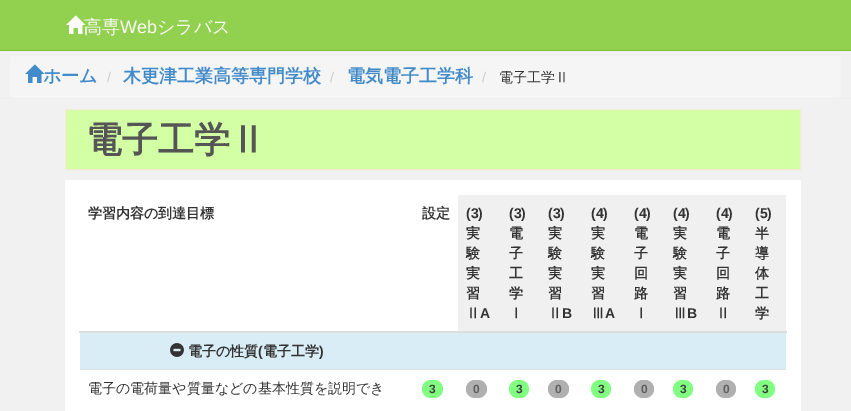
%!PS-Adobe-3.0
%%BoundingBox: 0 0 851 411
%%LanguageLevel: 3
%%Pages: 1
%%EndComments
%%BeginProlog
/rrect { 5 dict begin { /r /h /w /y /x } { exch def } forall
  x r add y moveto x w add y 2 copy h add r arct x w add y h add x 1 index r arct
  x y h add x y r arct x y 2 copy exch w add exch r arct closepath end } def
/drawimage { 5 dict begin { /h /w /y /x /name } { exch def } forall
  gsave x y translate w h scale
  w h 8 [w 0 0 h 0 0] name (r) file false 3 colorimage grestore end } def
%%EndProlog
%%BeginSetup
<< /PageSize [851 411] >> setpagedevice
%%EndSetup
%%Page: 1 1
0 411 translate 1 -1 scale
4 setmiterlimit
0.945 setgray
0 0 851 411 rectfill
0.573 0.816 0.314 setrgbcolor
0 0 851 50 rectfill
0.486 0.749 0.2 setrgbcolor
0 50 851 1 rectfill
0.933 setgray
0 98 851 1 rectfill
0.961 setgray
10 56 831 42 4 rrect fill
0.827 1 0.647 setrgbcolor
newpath 65.5 109.5 moveto 800.5 109.5 lineto 800.5 169.5 lineto 65.5 169.5 lineto closepath gsave fill grestore
0.945 0.925 0.824 setrgbcolor
stroke
1 setgray
65 180 736 231 rectfill
0.941 setgray
458 195 328 136 rectfill
0.867 setgray
79 331 708 2 rectfill
0.851 0.929 0.969 setrgbcolor
80 333 706 36 rectfill
(images/3.raw) 170 343 14 14 drawimage
0.502 1 0.502 setrgbcolor
422 380 21 18 9 rrect fill
0.69 setgray
466 380 21 18 9 rrect fill
0.502 1 0.502 setrgbcolor
509 380 20 18 9 rrect fill
0.69 setgray
548 380 21 18 9 rrect fill
0.502 1 0.502 setrgbcolor
591 380 20 18 9 rrect fill
0.69 setgray
634 380 20 18 9 rrect fill
0.502 1 0.502 setrgbcolor
673 380 20 18 9 rrect fill
0.69 setgray
716 380 20 18 9 rrect fill
0.867 setgray
80 369 706 1 rectfill
0.502 1 0.502 setrgbcolor
755 380 20 18 9 rrect fill
/WenQuanYiZenHei-Medium [18 0 0 -18 0 0] selectfont
0.988 0.984 0.976 setrgbcolor
84 33 moveto (高専) show
(images/1.raw) 66 15 20 19 drawimage
/LiberationSans-Regular [18 0 0 -18 0 0] selectfont
120 33 moveto (Web) show
/WenQuanYiZenHei-Medium [18 0 0 -18 0 0] selectfont
157 33 moveto (シラバス) show
/WenQuanYiZenHei-Bold [18 0 0 -18 0 0] selectfont
0.259 0.545 0.792 setrgbcolor
43 82 moveto (ホーム) show
(images/2.raw) 25 64 20 19 drawimage
/LiberationSans-Regular [14 0 0 -14 0 0] selectfont
0.8 setgray
107 82 moveto (/) show
/WenQuanYiZenHei-Bold [18 0 0 -18 0 0] selectfont
0.259 0.545 0.792 setrgbcolor
123 82 moveto (木更津工業高等専門学校) show
/LiberationSans-Regular [14 0 0 -14 0 0] selectfont
0.8 setgray
330 82 moveto (/) show
/WenQuanYiZenHei-Bold [18 0 0 -18 0 0] selectfont
0.259 0.545 0.792 setrgbcolor
347 82 moveto (電気電子工学科) show
/LiberationSans-Regular [14 0 0 -14 0 0] selectfont
0.8 setgray
482 82 moveto (/) show
/WenQuanYiZenHei-Medium [14 0 0 -14 0 0] selectfont
0.2 setgray
499 82 moveto (電子工学Ⅱ) show
/WenQuanYiZenHei-Bold [36 0 0 -36 0 0] selectfont
0.333 setgray
86 152 moveto (電子工学Ⅱ) show
/WenQuanYiZenHei-Bold [14 0 0 -14 0 0] selectfont
0.2 setgray
88 218 moveto (学習内容の到達目標) show
422 218 moveto (設定) show
/LiberationSans-Bold [14 0 0 -14 0 0] selectfont
466 218 moveto (\(3\)) show
/WenQuanYiZenHei-Bold [14 0 0 -14 0 0] selectfont
466 238 moveto (実) show
466 258 moveto (験) show
466 278 moveto (実) show
466 298 moveto (習) show
466 318 moveto (Ⅱ) show
/LiberationSans-Bold [14 0 0 -14 0 0] selectfont
480 318 moveto (A) show
509 218 moveto (\(3\)) show
/WenQuanYiZenHei-Bold [14 0 0 -14 0 0] selectfont
509 238 moveto (電) show
509 258 moveto (子) show
509 278 moveto (工) show
509 298 moveto (学) show
509 318 moveto (Ⅰ) show
/LiberationSans-Bold [14 0 0 -14 0 0] selectfont
548 218 moveto (\(3\)) show
/WenQuanYiZenHei-Bold [14 0 0 -14 0 0] selectfont
548 238 moveto (実) show
548 258 moveto (験) show
548 278 moveto (実) show
548 298 moveto (習) show
548 318 moveto (Ⅱ) show
/LiberationSans-Bold [14 0 0 -14 0 0] selectfont
562 318 moveto (B) show
591 218 moveto (\(4\)) show
/WenQuanYiZenHei-Bold [14 0 0 -14 0 0] selectfont
591 238 moveto (実) show
591 258 moveto (験) show
591 278 moveto (実) show
591 298 moveto (習) show
591 318 moveto (Ⅲ) show
/LiberationSans-Bold [14 0 0 -14 0 0] selectfont
605 318 moveto (A) show
634 218 moveto (\(4\)) show
/WenQuanYiZenHei-Bold [14 0 0 -14 0 0] selectfont
634 238 moveto (電) show
634 258 moveto (子) show
634 278 moveto (回) show
634 298 moveto (路) show
634 318 moveto (Ⅰ) show
/LiberationSans-Bold [14 0 0 -14 0 0] selectfont
673 218 moveto (\(4\)) show
/WenQuanYiZenHei-Bold [14 0 0 -14 0 0] selectfont
673 238 moveto (実) show
673 258 moveto (験) show
673 278 moveto (実) show
673 298 moveto (習) show
673 318 moveto (Ⅲ) show
/LiberationSans-Bold [14 0 0 -14 0 0] selectfont
687 318 moveto (B) show
716 218 moveto (\(4\)) show
/WenQuanYiZenHei-Bold [14 0 0 -14 0 0] selectfont
716 238 moveto (電) show
716 258 moveto (子) show
716 278 moveto (回) show
716 298 moveto (路) show
716 318 moveto (Ⅱ) show
/LiberationSans-Bold [14 0 0 -14 0 0] selectfont
755 218 moveto (\(5\)) show
/WenQuanYiZenHei-Bold [14 0 0 -14 0 0] selectfont
755 238 moveto (半) show
755 258 moveto (導) show
755 278 moveto (体) show
755 298 moveto (工) show
755 318 moveto (学) show
188 356 moveto (電子の性質) show
/LiberationSans-Bold [14 0 0 -14 0 0] selectfont
258 356 moveto (\() show
/WenQuanYiZenHei-Bold [14 0 0 -14 0 0] selectfont
263 356 moveto (電子工学) show
/LiberationSans-Bold [14 0 0 -14 0 0] selectfont
319 356 moveto (\)) show
/WenQuanYiZenHei-Medium [14 0 0 -14 0 0] selectfont
88 393 moveto (電子の電荷量や質量などの基本性質を説明でき) show
/LiberationSans-Bold [12 0 0 -12 0 0] selectfont
0.251 setgray
429 393 moveto (3) show
0.376 setgray
473 393 moveto (0) show
0.251 setgray
516 393 moveto (3) show
0.376 setgray
555 393 moveto (0) show
0.251 setgray
598 393 moveto (3) show
0.376 setgray
641 393 moveto (0) show
0.251 setgray
680 393 moveto (3) show
0.376 setgray
723 393 moveto (0) show
0.251 setgray
762 393 moveto (3) show
showpage
%%EOF
